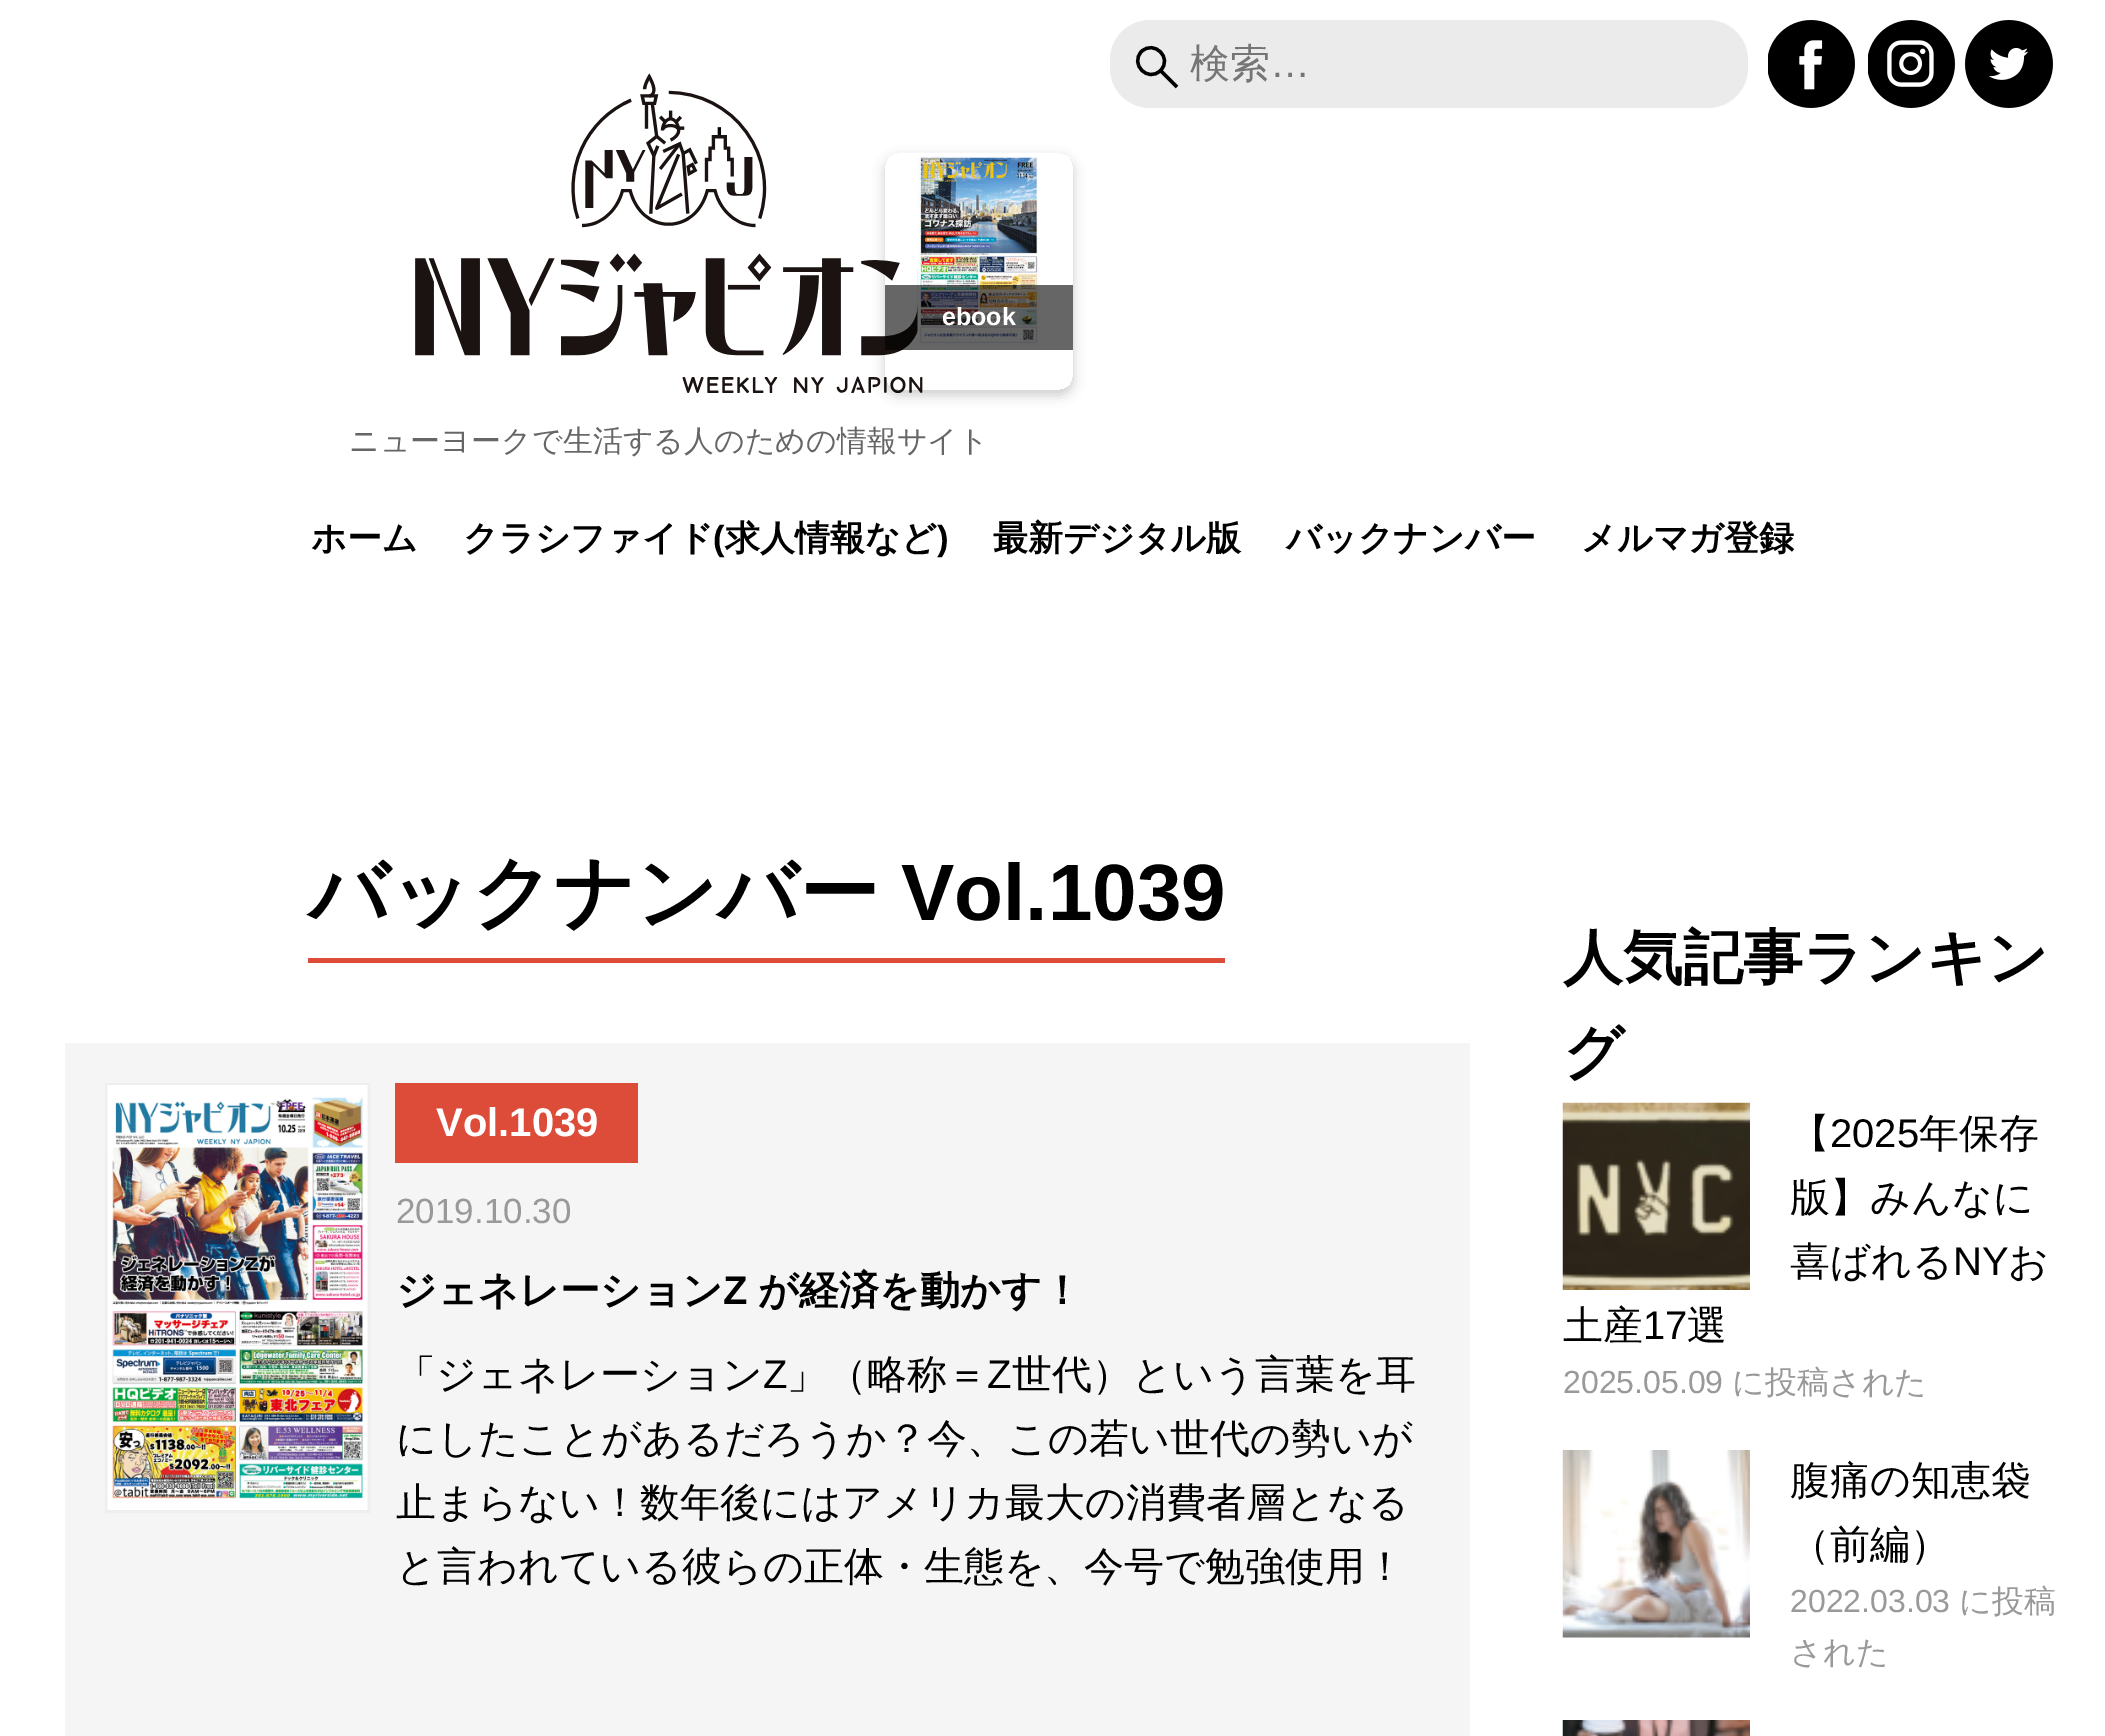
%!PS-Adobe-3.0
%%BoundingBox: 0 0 2105 1736
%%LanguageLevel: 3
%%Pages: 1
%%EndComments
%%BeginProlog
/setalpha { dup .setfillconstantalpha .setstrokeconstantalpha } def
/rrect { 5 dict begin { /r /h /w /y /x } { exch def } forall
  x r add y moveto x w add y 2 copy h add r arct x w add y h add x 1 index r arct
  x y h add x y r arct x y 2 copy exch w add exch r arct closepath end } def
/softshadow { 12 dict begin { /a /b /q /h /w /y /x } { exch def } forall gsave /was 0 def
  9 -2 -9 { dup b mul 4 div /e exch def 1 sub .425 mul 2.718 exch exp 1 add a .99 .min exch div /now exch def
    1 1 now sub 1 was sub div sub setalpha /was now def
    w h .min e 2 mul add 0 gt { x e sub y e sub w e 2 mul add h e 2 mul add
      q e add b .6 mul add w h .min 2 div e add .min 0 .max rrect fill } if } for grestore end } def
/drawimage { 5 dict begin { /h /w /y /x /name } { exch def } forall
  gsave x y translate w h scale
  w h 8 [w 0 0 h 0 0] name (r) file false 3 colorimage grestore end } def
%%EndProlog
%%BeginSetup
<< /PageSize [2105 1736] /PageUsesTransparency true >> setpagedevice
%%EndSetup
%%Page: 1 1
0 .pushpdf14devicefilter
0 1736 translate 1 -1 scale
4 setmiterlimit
1 setgray
0 0 2105 1736 rectfill
0.922 setgray
1110 20 638 88 40 rrect fill
0 setgray
3.3 setlinewidth
newpath 1141.5 51.5 moveto 1154 39.5 1173 58 1160.5 70.5 curveto 1148 83 1129.5 64 1141.5 51.5 curveto closepath 1161 71 moveto 1177 87 lineto stroke
(images/1.raw) 1768 20 87 88 drawimage
(images/2.raw) 1868 20 87 88 drawimage
(images/3.raw) 1965 20 88 88 drawimage
(images/5.raw) 415 73 508 320 drawimage
gsave
newpath 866 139 moveto 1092 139 lineto 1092 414 lineto 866 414 lineto closepath 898 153 moveto 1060 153 lineto 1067 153 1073 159 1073 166 curveto 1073 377 lineto 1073 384 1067 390 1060 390 curveto 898 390 lineto 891 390 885 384 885 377 curveto 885 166 lineto 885 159 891 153 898 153 curveto closepath eoclip newpath
885 158 188 237 13 6 0.2 softshadow
grestore
(images/4.raw) 917 156 123 190 drawimage
0.6 setalpha
885 285 188 65 rectfill
1 setalpha
0.867 0.294 0.224 setrgbcolor
308 958 917 5 rectfill
0.961 setgray
65 1043 1405 693 rectfill
0.933 setgray
3 setlinewidth
106.5 1084.5 262 427 rectstroke
(images/6.raw) 107 1085 261 425 drawimage
0.867 0.294 0.224 setrgbcolor
395 1083 243 80 rectfill
(images/7.raw) 1562 1102 188 188 drawimage
(images/8.raw) 1562 1450 188 188 drawimage
(images/9.raw) 1562 1720 188 16 drawimage
/WenQuanYiZenHei-Medium [40 0 0 -40 0 0] selectfont
0.459 setgray
1190 77 moveto (検索) show
/LiberationSans-Regular [40 0 0 -40 0 0] selectfont
1270 77 moveto (…) show
/LiberationSans-Bold [25 0 0 -25 0 0] selectfont
1 setgray
942 325 moveto (ebook) show
/WenQuanYiZenHei-Medium [30 0 0 -30 0 0] selectfont
0.4 setgray
349 451 moveto (ニューヨークで生活する人のための情報サイト) show
/WenQuanYiZenHei-Bold [35 0 0 -35 0 0] selectfont
0 setgray
311 550 moveto (ホーム) show
463 550 moveto (クラシファイド) show
/LiberationSans-Bold [35 0 0 -35 0 0] selectfont
713 550 moveto (\() show
/WenQuanYiZenHei-Bold [35 0 0 -35 0 0] selectfont
725 550 moveto (求人情報など) show
/LiberationSans-Bold [35 0 0 -35 0 0] selectfont
937 550 moveto (\)) show
/WenQuanYiZenHei-Bold [35 0 0 -35 0 0] selectfont
993 550 moveto (最新デジタル版) show
1286 550 moveto (バックナンバー) show
1581 550 moveto (メルマガ登録) show
/WenQuanYiZenHei-Bold [80 0 0 -80 0 0] selectfont
308 920 moveto (バックナンバー) show
/LiberationSans-Bold [80 0 0 -80 0 0] selectfont
901 920 moveto (Vol.1039) show
/LiberationSans-Bold [40 0 0 -40 0 0] selectfont
1 setgray
436 1136 moveto (Vol.1039) show
/LiberationSans-Regular [35 0 0 -35 0 0] selectfont
0.6 setgray
396 1223 moveto (2019.10.30) show
/WenQuanYiZenHei-Bold [40 0 0 -40 0 0] selectfont
0 setgray
396 1304 moveto (ジェネレーション) show
/LiberationSans-Bold [40 0 0 -40 0 0] selectfont
723 1304 moveto (Z) show
/WenQuanYiZenHei-Bold [40 0 0 -40 0 0] selectfont
758 1304 moveto (が経済を動かす！) show
/WenQuanYiZenHei-Medium [40 0 0 -40 0 0] selectfont
396 1388 moveto (「ジェネレーション) show
/LiberationSans-Regular [40 0 0 -40 0 0] selectfont
763 1388 moveto (Z) show
/WenQuanYiZenHei-Medium [40 0 0 -40 0 0] selectfont
787 1388 moveto (」（略称＝) show
/LiberationSans-Regular [40 0 0 -40 0 0] selectfont
987 1388 moveto (Z) show
/WenQuanYiZenHei-Medium [40 0 0 -40 0 0] selectfont
1012 1388 moveto (世代）という言葉を耳) show
396 1452 moveto (にしたことがあるだろうか？今、この若い世代の勢いが) show
396 1516 moveto (止まらない！数年後にはアメリカ最大の消費者層となる) show
396 1580 moveto (と言われている彼らの正体・生態を、今号で勉強使用！) show
/WenQuanYiZenHei-Bold [60 0 0 -60 0 0] selectfont
1563 978 moveto (人気記事ランキン) show
1563 1073 moveto (グ) show
/WenQuanYiZenHei-Medium [40 0 0 -40 0 0] selectfont
1790 1147 moveto (【) show
/LiberationSans-Regular [40 0 0 -40 0 0] selectfont
1830 1147 moveto (2025) show
/WenQuanYiZenHei-Medium [40 0 0 -40 0 0] selectfont
1919 1147 moveto (年保存) show
1790 1211 moveto (版】みんなに) show
1790 1275 moveto (喜ばれる) show
/LiberationSans-Regular [40 0 0 -40 0 0] selectfont
1953 1275 moveto (NY) show
/WenQuanYiZenHei-Medium [40 0 0 -40 0 0] selectfont
2008 1275 moveto (お) show
1563 1339 moveto (土産) show
/LiberationSans-Regular [40 0 0 -40 0 0] selectfont
1643 1339 moveto (17) show
/WenQuanYiZenHei-Medium [40 0 0 -40 0 0] selectfont
1687 1339 moveto (選) show
/LiberationSans-Regular [32 0 0 -32 0 0] selectfont
0.6 setgray
1563 1393 moveto (2025.05.09) show
/WenQuanYiZenHei-Medium [32 0 0 -32 0 0] selectfont
1732 1393 moveto (に投稿された) show
/WenQuanYiZenHei-Medium [40 0 0 -40 0 0] selectfont
0 setgray
1790 1494 moveto (腹痛の知恵袋) show
1790 1558 moveto (（前編）) show
/LiberationSans-Regular [32 0 0 -32 0 0] selectfont
0.6 setgray
1790 1612 moveto (2022.03.03) show
/WenQuanYiZenHei-Medium [32 0 0 -32 0 0] selectfont
1959 1612 moveto (に投稿) show
1790 1663 moveto (された) show
.poppdf14devicefilter showpage
%%EOF
